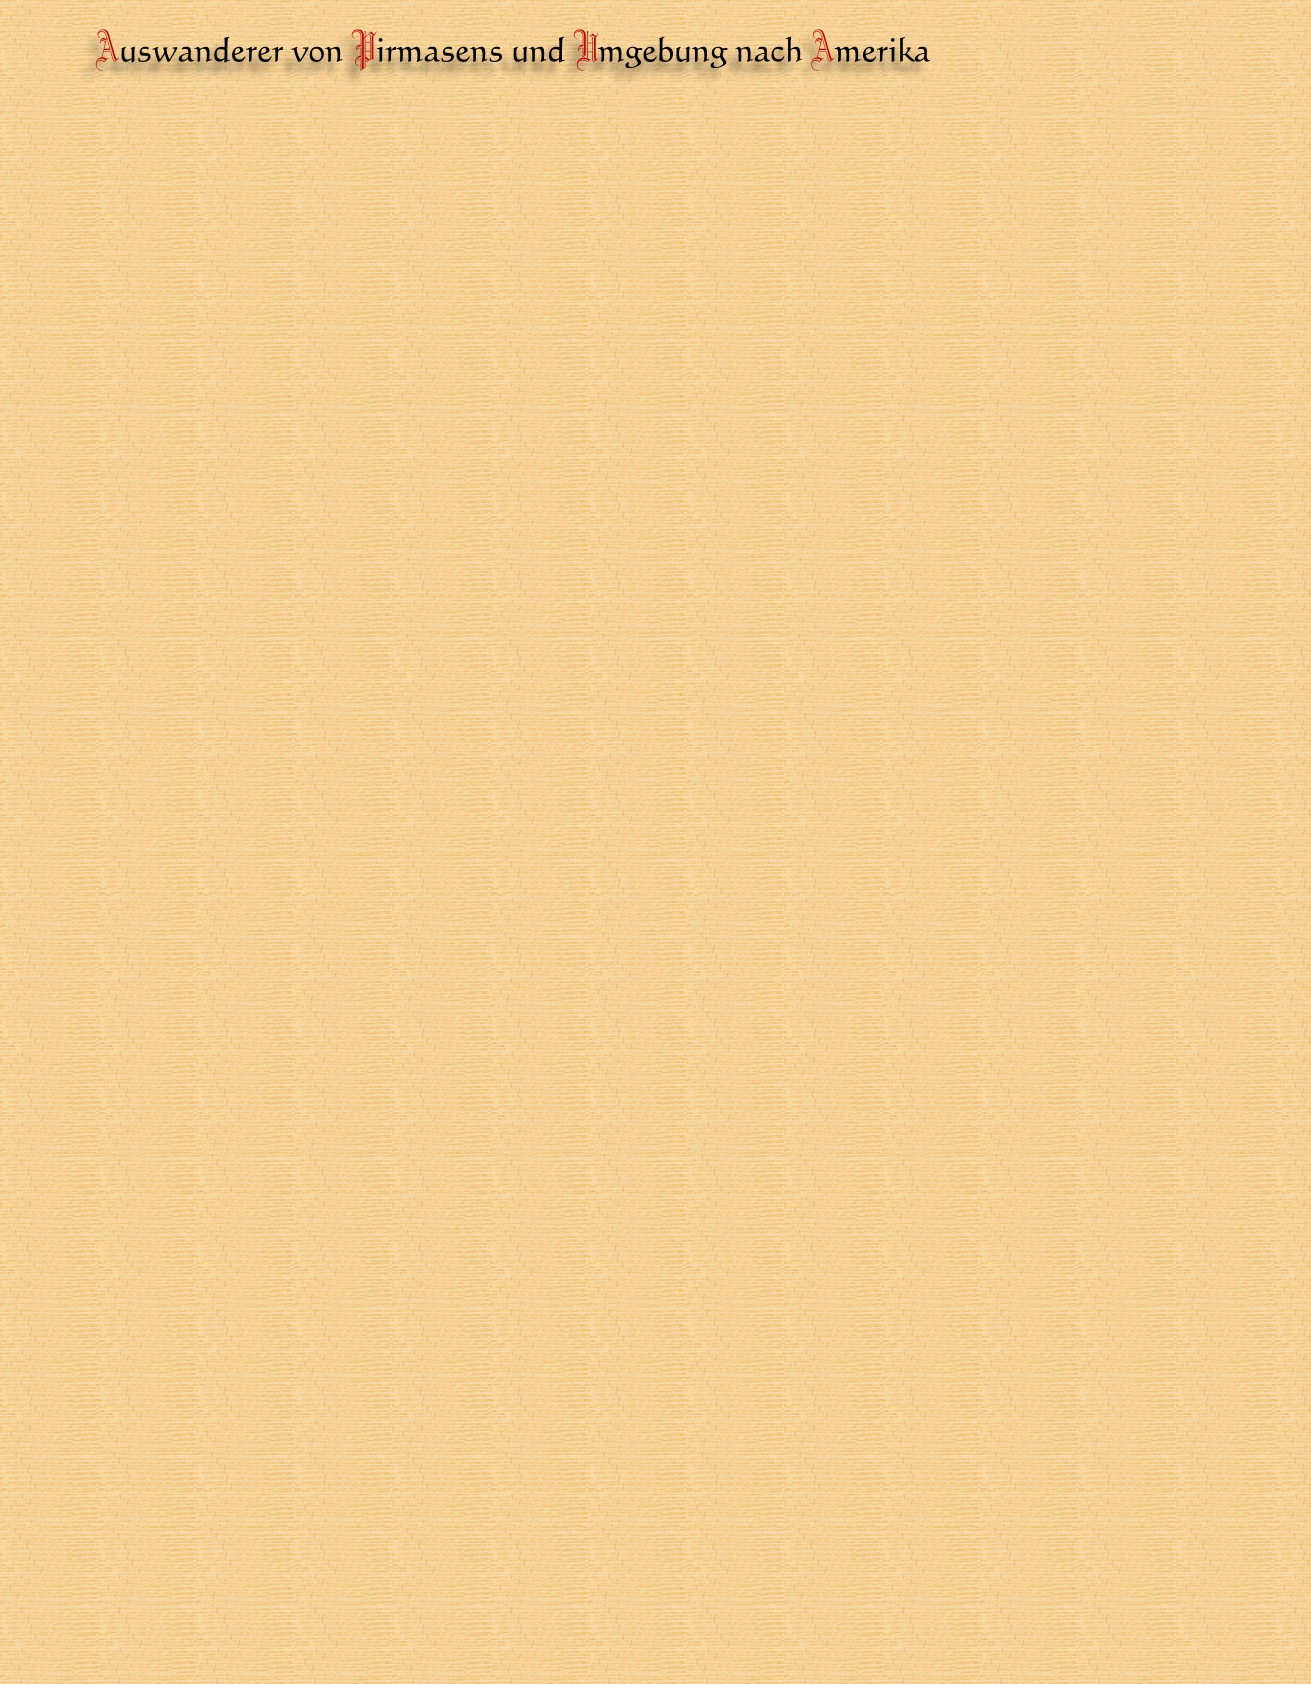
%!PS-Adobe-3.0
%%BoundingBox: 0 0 1311 1684
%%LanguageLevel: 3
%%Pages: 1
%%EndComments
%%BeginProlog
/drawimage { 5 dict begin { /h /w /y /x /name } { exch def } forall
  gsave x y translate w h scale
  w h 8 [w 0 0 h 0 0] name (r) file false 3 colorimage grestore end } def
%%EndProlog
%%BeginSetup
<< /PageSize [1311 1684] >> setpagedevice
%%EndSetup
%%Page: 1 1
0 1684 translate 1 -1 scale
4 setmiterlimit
1 setgray
0 0 1311 1684 rectfill
(images/1.raw) 0 0 1311 1684 drawimage
(images/2.raw) 0 29 110 62 drawimage
(images/3.raw) 110 29 785 62 drawimage
(images/4.raw) 895 29 129 62 drawimage
showpage
%%EOF
